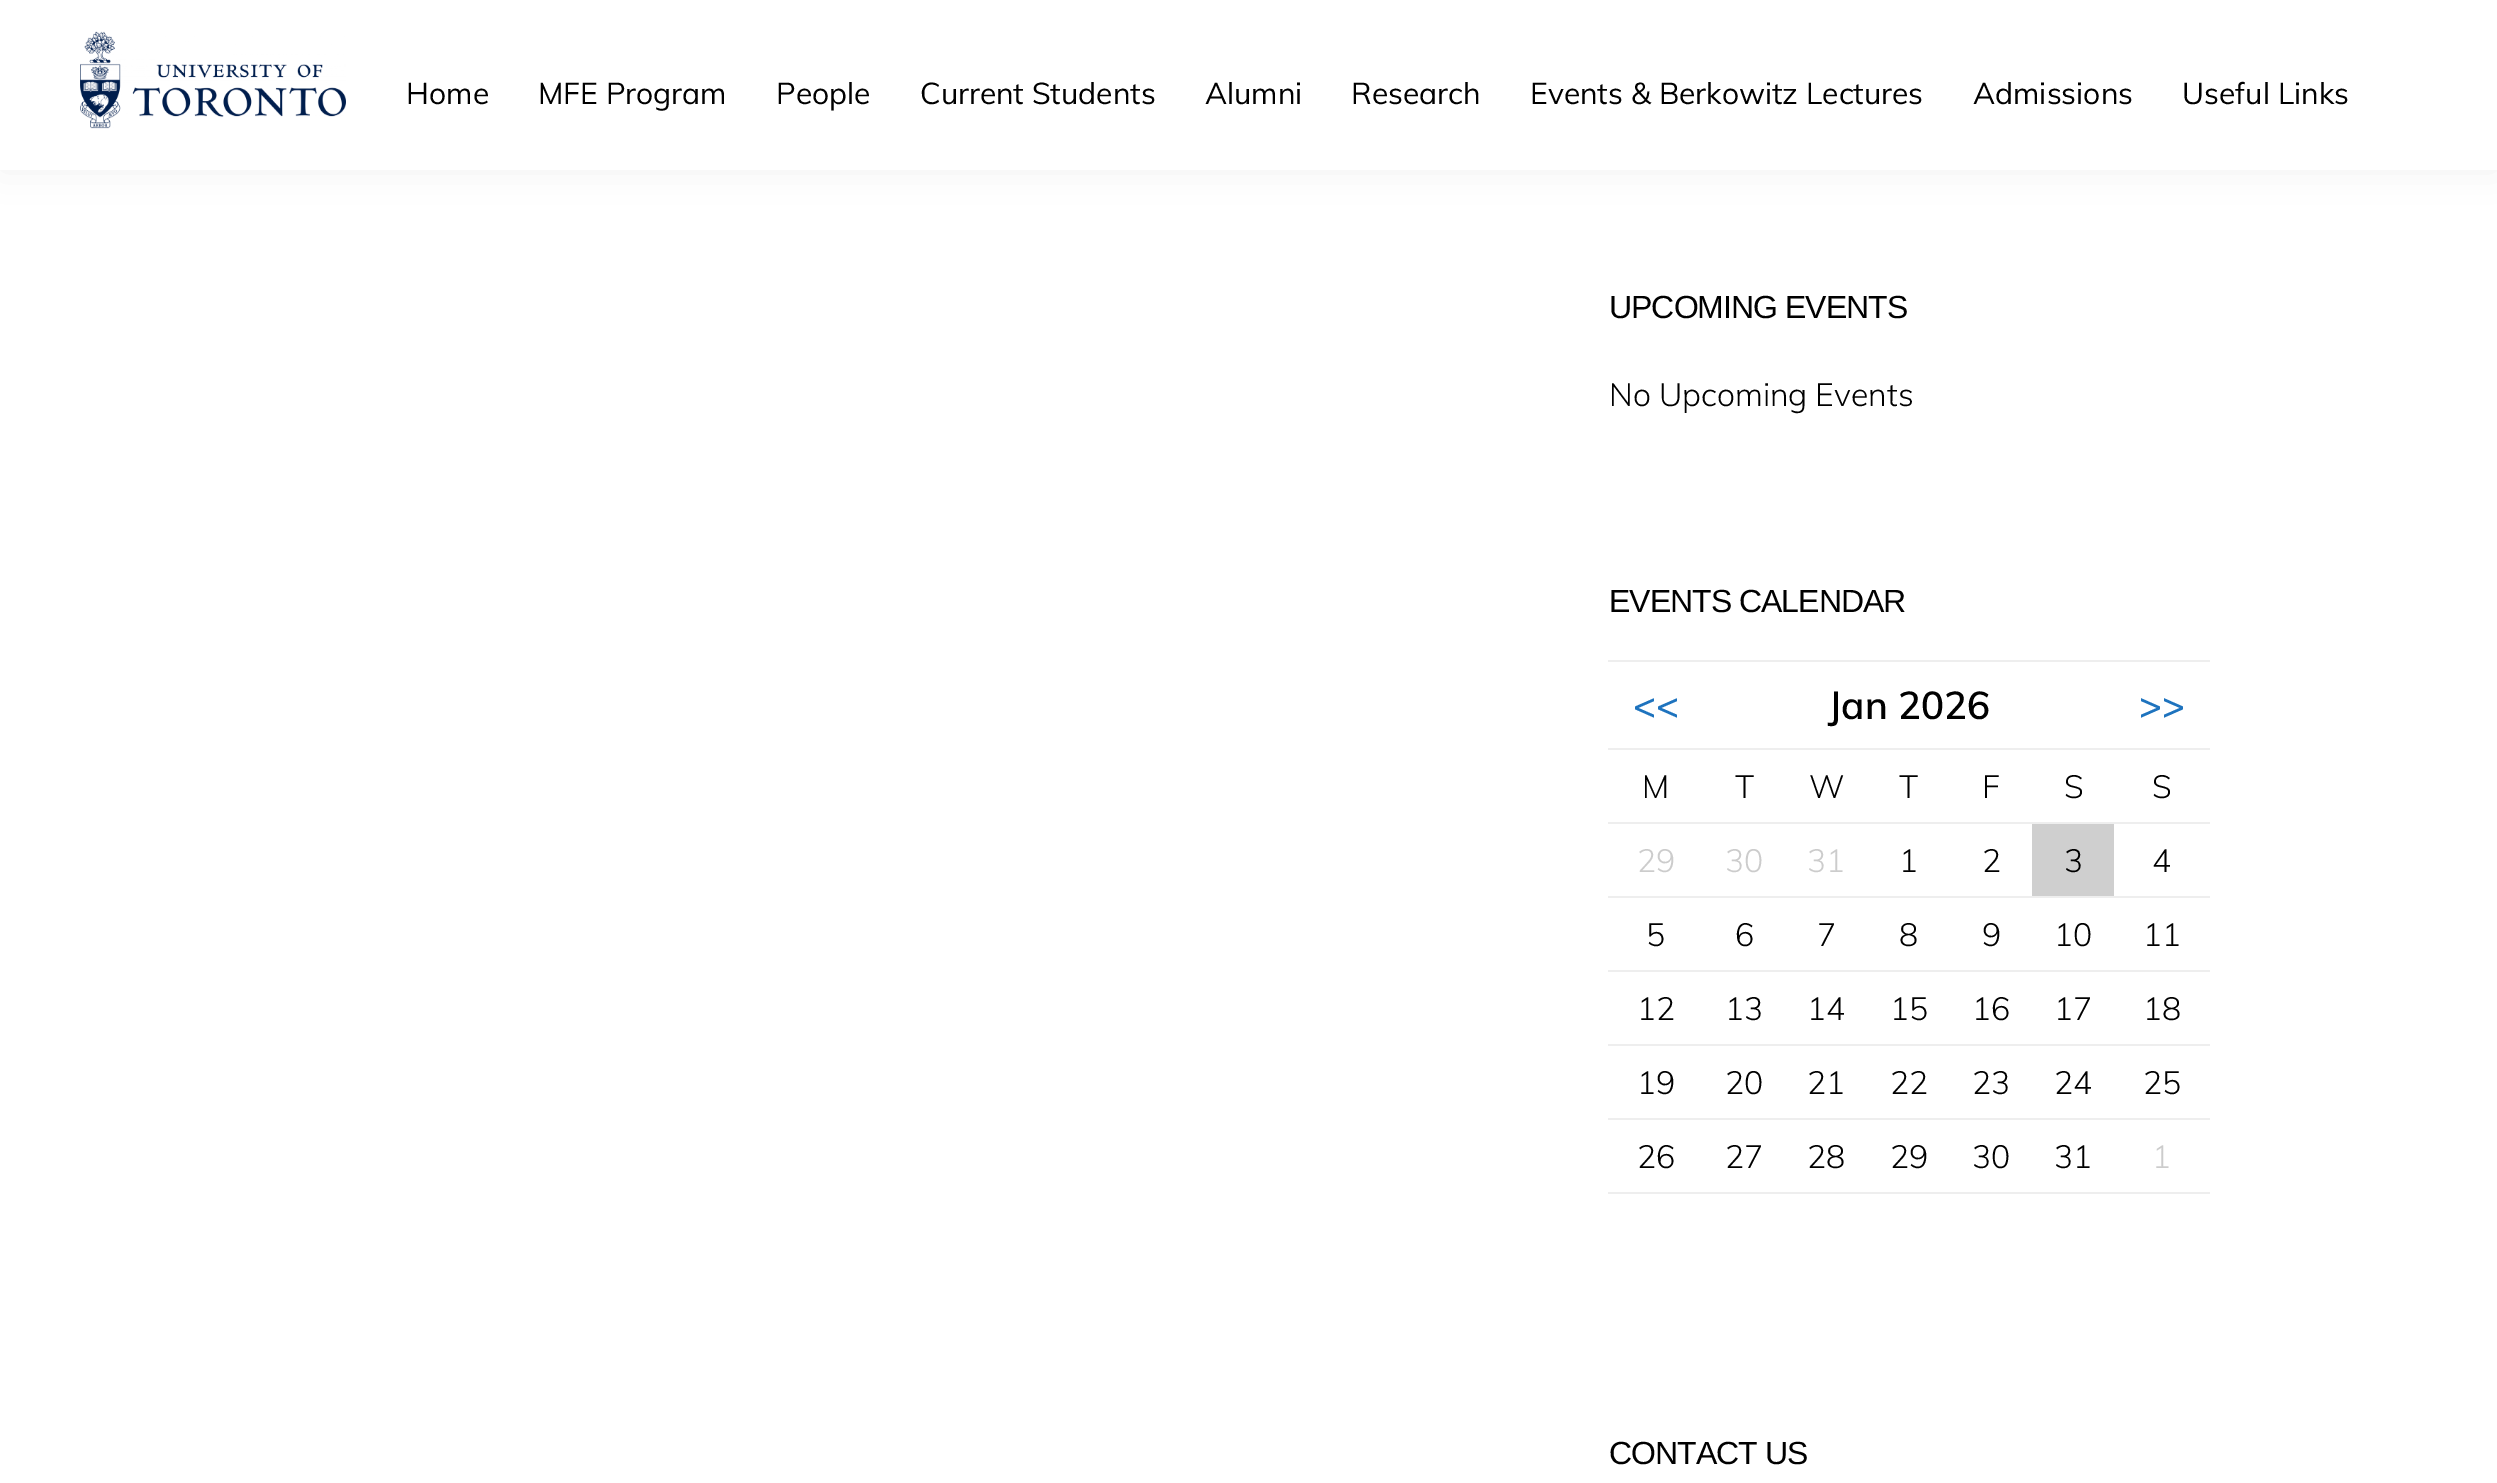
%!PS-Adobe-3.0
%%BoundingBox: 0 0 2497 1483
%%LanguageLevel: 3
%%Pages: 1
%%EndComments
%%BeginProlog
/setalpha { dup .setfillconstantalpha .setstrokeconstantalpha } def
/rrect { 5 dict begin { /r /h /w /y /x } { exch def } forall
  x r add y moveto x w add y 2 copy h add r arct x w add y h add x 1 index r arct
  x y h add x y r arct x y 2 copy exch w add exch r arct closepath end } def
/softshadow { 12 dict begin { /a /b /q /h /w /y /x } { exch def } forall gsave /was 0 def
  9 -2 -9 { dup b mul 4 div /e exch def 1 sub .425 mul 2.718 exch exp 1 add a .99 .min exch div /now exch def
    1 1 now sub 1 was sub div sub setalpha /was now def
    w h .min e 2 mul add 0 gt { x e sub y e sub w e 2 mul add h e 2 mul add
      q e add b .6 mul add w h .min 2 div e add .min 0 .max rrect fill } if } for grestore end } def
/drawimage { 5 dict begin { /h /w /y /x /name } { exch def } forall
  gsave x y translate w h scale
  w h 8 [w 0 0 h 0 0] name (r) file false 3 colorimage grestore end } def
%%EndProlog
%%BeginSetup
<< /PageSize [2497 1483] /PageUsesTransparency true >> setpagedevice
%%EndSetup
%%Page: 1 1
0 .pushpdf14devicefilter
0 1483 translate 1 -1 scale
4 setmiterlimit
1 setgray
0 0 2497 1483 rectfill
0 setgray
0 0 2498 170 0 20 0.05 softshadow
1 setgray
0 0 2497 170 rectfill
(images/1.raw) 80 31 266 98 drawimage
0.933 setgray
1608 660 602 2 rectfill
1608 1192 602 2 rectfill
1608 748 602 2 rectfill
0.812 setgray
2032 824 82 72 rectfill
0.933 setgray
1608 822 602 2 rectfill
1608 896 602 2 rectfill
1608 970 602 2 rectfill
1608 1044 602 2 rectfill
1608 1118 602 2 rectfill
/Muli-Regular [30 0 0 -30 0 0] selectfont
0 setgray
406 104 moveto (Home) show
538 104 moveto (MFE Program) show
776 104 moveto (People) show
920 104 moveto (Current Students) show
1205 104 moveto (Alumni) show
1351 104 moveto (Research) show
1530 104 moveto (Events & Berkowitz Lectures) show
1973 104 moveto (Admissions) show
2182 104 moveto (Useful Links) show
/LiberationSans-Regular [32 0 0 -32 0 0] selectfont
1609 318 moveto -1 0 (UPCOMING EVENTS) ashow
/Muli-Light [32 0 0 -32 0 0] selectfont
1609 406 moveto (No Upcoming Events) show
/LiberationSans-Regular [32 0 0 -32 0 0] selectfont
1609 612 moveto -1 0 (EVENTS CALENDAR) ashow
/Muli-SemiBold [38.5 0 0 -38.5 0 0] selectfont
0.118 0.451 0.745 setrgbcolor
1633 719 moveto (<<) show
0 setgray
1828 719 moveto (Jan 2026) show
0.118 0.451 0.745 setrgbcolor
2139 719 moveto (>>) show
/Muli-Light [32 0 0 -32 0 0] selectfont
0 setgray
1642 798 moveto (M) show
1735 798 moveto (T) show
1809 798 moveto (W) show
1899 798 moveto (T) show
1982 798 moveto (F) show
2064 798 moveto (S) show
2152 798 moveto (S) show
0.8 setgray
1637 872 moveto (29) show
1725 872 moveto (30) show
1807 872 moveto (31) show
0 setgray
1899 872 moveto (1) show
1982 872 moveto (2) show
2064 872 moveto (3) show
2152 872 moveto (4) show
1646 946 moveto (5) show
1735 946 moveto (6) show
1817 946 moveto (7) show
1899 946 moveto (8) show
1982 946 moveto (9) show
2054 946 moveto (10) show
2143 946 moveto (11) show
1637 1020 moveto (12) show
1725 1020 moveto (13) show
1807 1020 moveto (14) show
1890 1020 moveto (15) show
1972 1020 moveto (16) show
2054 1020 moveto (17) show
2143 1020 moveto (18) show
1637 1094 moveto (19) show
1725 1094 moveto (20) show
1807 1094 moveto (21) show
1890 1094 moveto (22) show
1972 1094 moveto (23) show
2054 1094 moveto (24) show
2143 1094 moveto (25) show
1637 1168 moveto (26) show
1725 1168 moveto (27) show
1807 1168 moveto (28) show
1890 1168 moveto (29) show
1972 1168 moveto (30) show
2054 1168 moveto (31) show
0.8 setgray
2152 1168 moveto (1) show
/LiberationSans-Regular [32 0 0 -32 0 0] selectfont
0 setgray
1609 1464 moveto -1 0 (CONTACT US) ashow
.poppdf14devicefilter showpage
%%EOF
